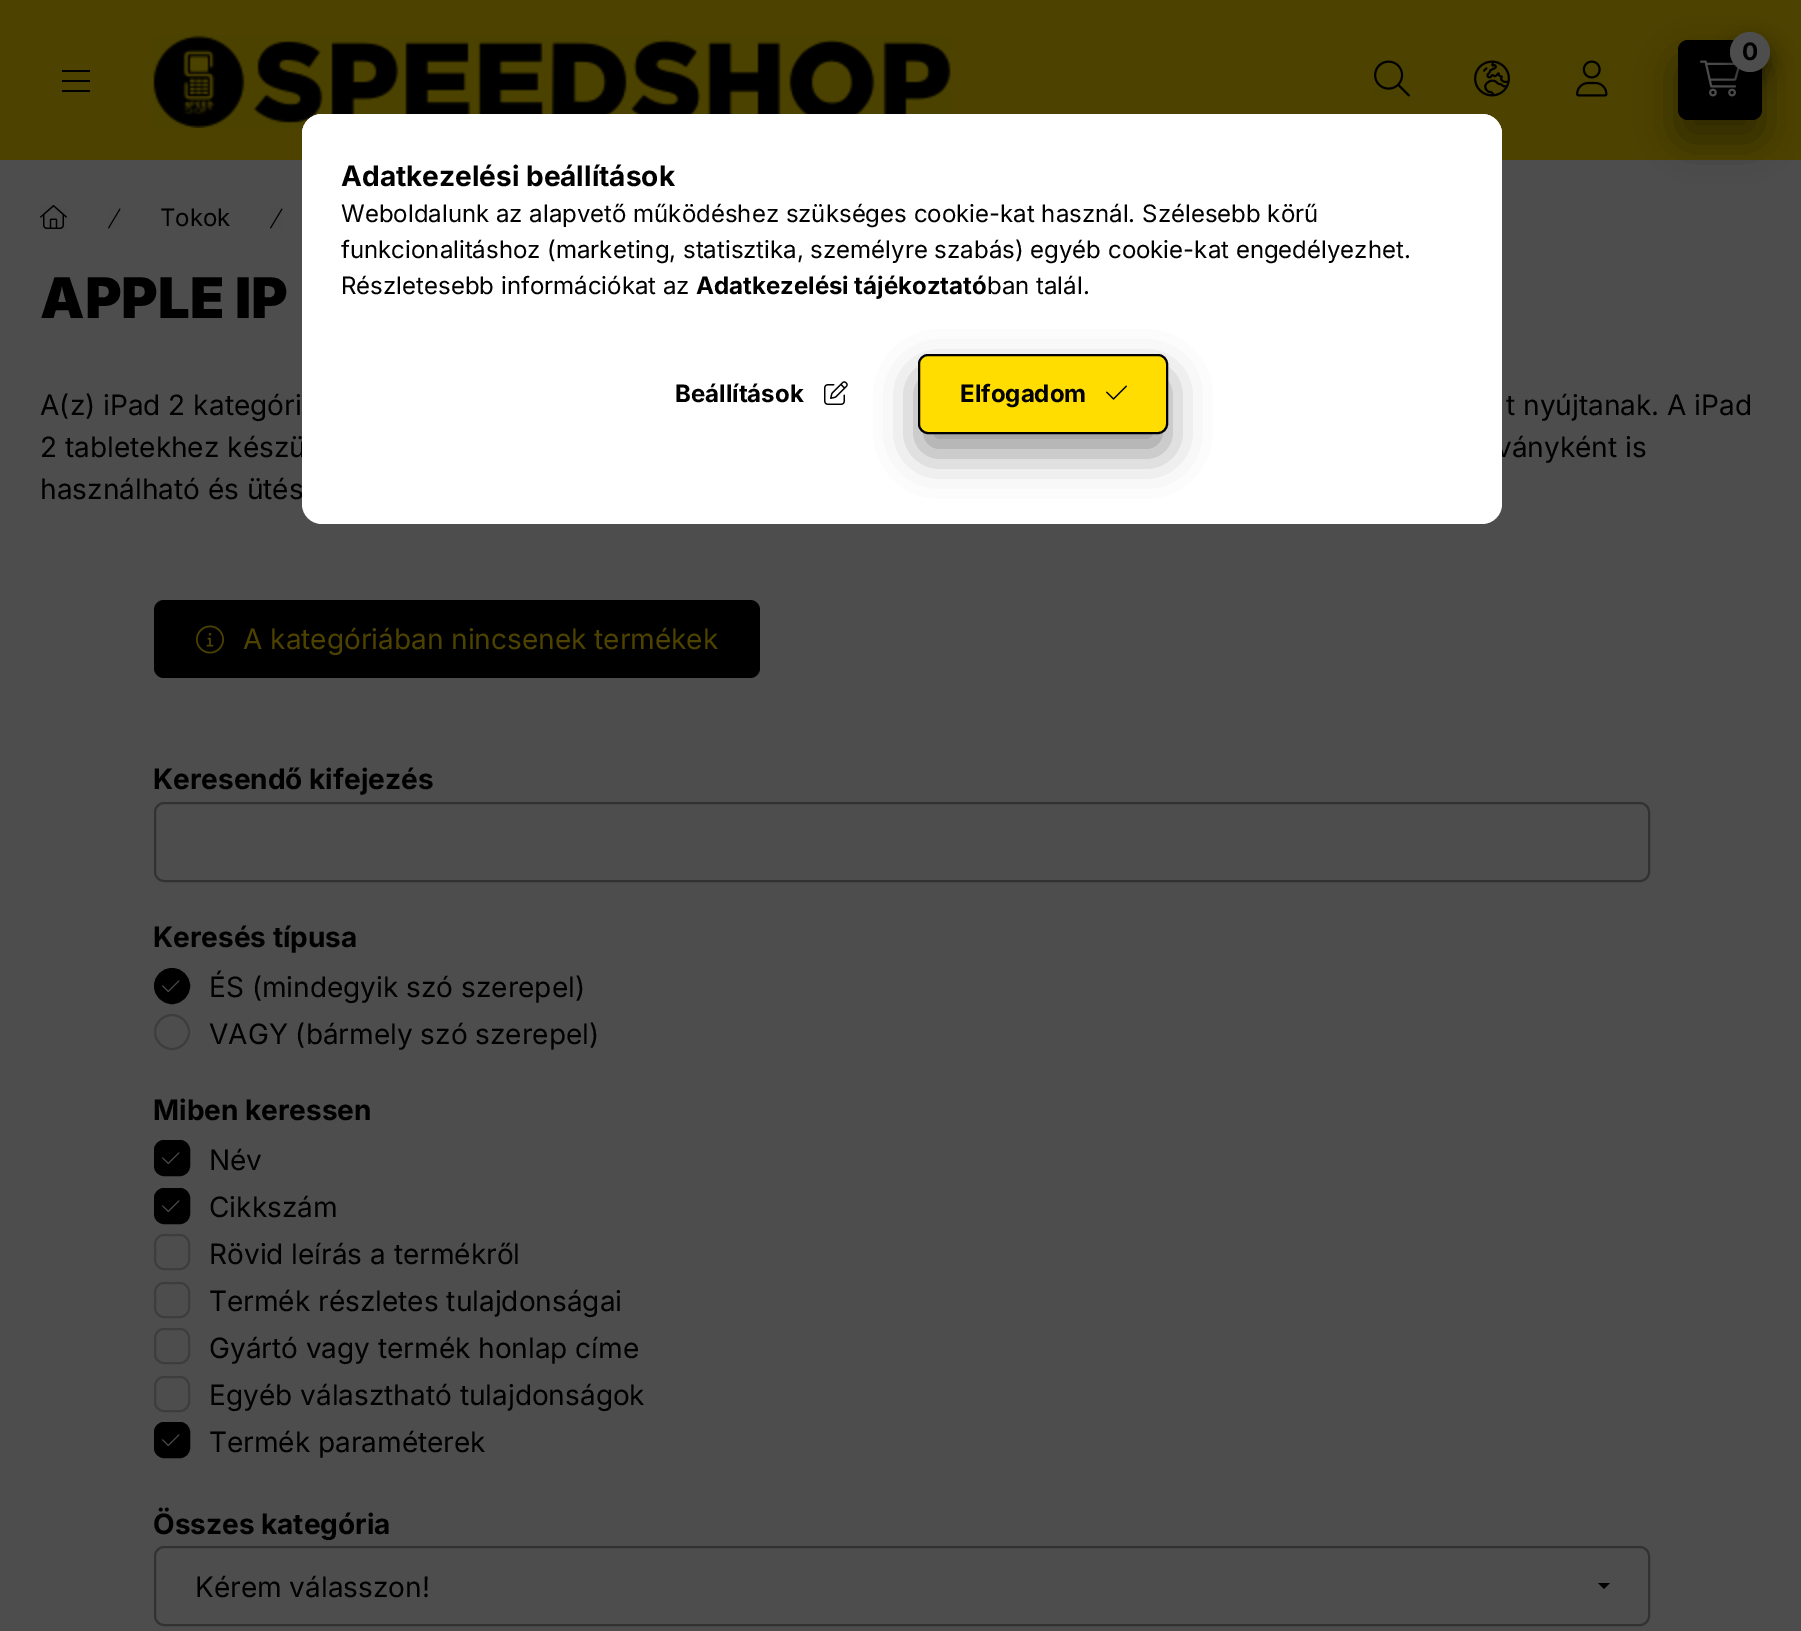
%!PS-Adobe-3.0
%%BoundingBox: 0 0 1801 1631
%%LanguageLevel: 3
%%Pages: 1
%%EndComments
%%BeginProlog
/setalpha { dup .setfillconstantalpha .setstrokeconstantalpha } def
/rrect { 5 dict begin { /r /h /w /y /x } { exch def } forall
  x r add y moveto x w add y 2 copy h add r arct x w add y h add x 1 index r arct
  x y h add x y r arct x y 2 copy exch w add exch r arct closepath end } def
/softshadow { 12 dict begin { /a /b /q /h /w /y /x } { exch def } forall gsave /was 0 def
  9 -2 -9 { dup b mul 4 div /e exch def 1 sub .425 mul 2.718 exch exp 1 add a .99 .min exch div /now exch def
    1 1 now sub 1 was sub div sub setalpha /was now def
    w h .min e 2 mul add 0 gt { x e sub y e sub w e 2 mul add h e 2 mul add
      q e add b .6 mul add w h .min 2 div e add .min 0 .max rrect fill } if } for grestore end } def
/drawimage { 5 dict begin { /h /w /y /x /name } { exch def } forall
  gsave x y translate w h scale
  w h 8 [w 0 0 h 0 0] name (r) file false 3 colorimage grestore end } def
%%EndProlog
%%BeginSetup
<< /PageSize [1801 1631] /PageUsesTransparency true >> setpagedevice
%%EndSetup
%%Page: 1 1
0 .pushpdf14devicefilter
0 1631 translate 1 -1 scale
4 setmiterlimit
0.302 setgray
0 0 1801 1631 rectfill
0.302 0.259 0 setrgbcolor
0 0 1801 160 rectfill
0 setgray
62 70 28 2 rectfill
62 80 28 2 rectfill
62 90 28 2 rectfill
(images/1.raw) 153 35 798 93 drawimage
1678 60 84 80 10 20 0.4 softshadow
1678 40 84 80 10 rrect fill
(images/2.raw) 1700 60 40 37 drawimage
1730 42 40 40 20 10 0.4 softshadow
0.302 setgray
newpath 1750 52 20 0 360 arc closepath fill
(images/3.raw) 1374 60 36 37 drawimage
(images/4.raw) 1474 60 36 37 drawimage
(images/5.raw) 1576 60 32 37 drawimage
(images/6.raw) 40 205 27 24 drawimage
(images/7.raw) 108 208 13 21 drawimage
(images/7.raw) 270 208 13 21 drawimage
0 setgray
154 600 606 78 10 rrect fill
(images/8.raw) 196 625 28 29 drawimage
0.196 setgray
2 setlinewidth
155 803 1494 78 9 rrect stroke
0 setgray
newpath 172 986 17 0 360 arc closepath gsave fill grestore
stroke
(images/9.raw) 162 980 18 13 drawimage
0.239 setgray
newpath 172 1032 17 0 360 arc closepath stroke
0 setgray
155 1141 34 34 9 rrect gsave fill grestore
stroke
(images/9.raw) 162 1152 18 13 drawimage
155 1189 34 34 9 rrect gsave fill grestore
stroke
(images/9.raw) 162 1200 18 13 drawimage
0.239 setgray
155 1235 34 34 9 rrect stroke
155 1283 34 34 9 rrect stroke
155 1329 34 34 9 rrect stroke
155 1377 34 34 9 rrect stroke
0 setgray
155 1423 34 34 9 rrect gsave fill grestore
stroke
(images/9.raw) 162 1434 18 13 drawimage
0.196 setgray
155 1547 1494 78 9 rrect stroke
0 setgray
newpath 1598 1583 moveto 1610 1583 lineto 1604 1589 lineto closepath fill
/Inter-Bold [24 0 0 -24 0 0] selectfont
1742 60 moveto (0) show
/Inter-Regular [24 0 0 -24 0 0] selectfont
160 226 moveto (Tokok) show
/Inter-Black [56 0 0 -56 0 0] selectfont
40 318 moveto (APPLE IP) show
/Inter-Regular [28 0 0 -28 0 0] selectfont
40 415 moveto (A\(z\) iPad 2 kategóri) show
1506 415 moveto (t nyújtanak. A iPad) show
40 457 moveto (2 tabletekhez készü) show
1496 457 moveto (ványként is) show
40 499 moveto (használható és ütés) show
0.302 0.259 0 setrgbcolor
243 649 moveto (A kategóriában nincsenek termékek) show
/Inter-Bold [28 0 0 -28 0 0] selectfont
0 setgray
153 789 moveto (Keresendő kifejezés) show
153 947 moveto (Keresés típusa) show
/Inter-Regular [28 0 0 -28 0 0] selectfont
209 997 moveto (ÉS \(mindegyik szó szerepel\)) show
209 1044 moveto (VAGY \(bármely szó szerepel\)) show
/Inter-Bold [28 0 0 -28 0 0] selectfont
153 1120 moveto (Miben keressen) show
/Inter-Regular [28 0 0 -28 0 0] selectfont
209 1170 moveto (Név) show
209 1217 moveto (Cikkszám) show
209 1264 moveto (Rövid leírás a termékről) show
209 1311 moveto (Termék részletes tulajdonságai) show
209 1358 moveto (Gyártó vagy termék honlap címe) show
209 1405 moveto (Egyéb választható tulajdonságok) show
209 1452 moveto (Termék paraméterek) show
/Inter-Bold [28 0 0 -28 0 0] selectfont
153 1534 moveto (Összes kategória) show
/Inter-Regular [28 0 0 -28 0 0] selectfont
195 1597 moveto (Kérem válasszon!) show
1 setgray
302 114 1200 410 20 rrect fill
newpath 322 114 moveto 1482 114 lineto 1493 114 1502 123 1502 134 curveto 1502 484 lineto 302 484 lineto 302 134 lineto 302 123 311 114 322 114 curveto closepath fill
/Inter-Bold [28 0 0 -28 0 0] selectfont
0 setgray
341 186 moveto (Adatkezelési beállítások) show
/Inter-Regular [24 0 0 -24 0 0] selectfont
341 222 moveto (Weboldalunk az alapvető működéshez szükséges cookie-kat használ. Szélesebb körű) show
341 258 moveto (funkcionalitáshoz \(marketing, statisztika, személyre szabás\) egyéb cookie-kat engedélyezhet.) show
341 294 moveto (Részletesebb információkat az) show
/Inter-Bold [24 0 0 -24 0 0] selectfont
696 294 moveto (Adatkezelési tájékoztató) show
/Inter-Regular [24 0 0 -24 0 0] selectfont
987 294 moveto (ban talál.) show
/Inter-Bold [24 0 0 -24 0 0] selectfont
675 402 moveto (Beállítások) show
(images/10.raw) 824 381 24 24 drawimage
918 374 250 80 10 20 0.4 softshadow
1 0.867 0 setrgbcolor
919 355 248 78 9 rrect gsave fill grestore
0 setgray
stroke
960 402 moveto (Elfogadom) show
(images/11.raw) 1106 385 21 15 drawimage
.poppdf14devicefilter showpage
%%EOF
